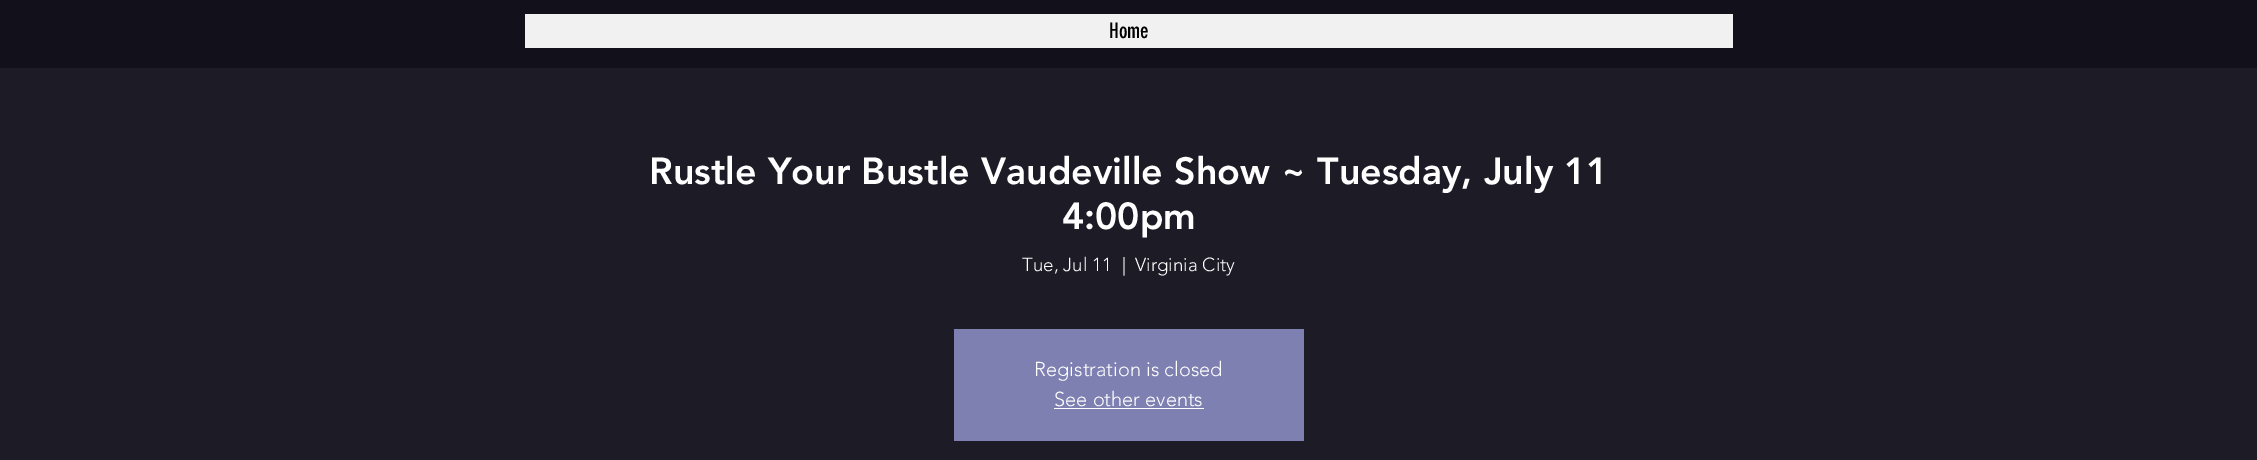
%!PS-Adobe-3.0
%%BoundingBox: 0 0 2257 460
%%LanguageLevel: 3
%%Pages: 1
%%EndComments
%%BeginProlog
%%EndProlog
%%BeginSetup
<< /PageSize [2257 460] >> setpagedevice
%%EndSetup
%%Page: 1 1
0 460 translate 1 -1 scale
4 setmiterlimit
0.071 0.063 0.106 setrgbcolor
0 0 2257 460 rectfill
0.945 setgray
525 14 1208 34 rectfill
0.114 0.106 0.149 setrgbcolor
0 68 2257 392 rectfill
0.494 0.502 0.694 setrgbcolor
954 329 350 112 rectfill
1 setgray
1054 408 150 1 rectfill
/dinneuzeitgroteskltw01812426-Regular [21 0 0 -21 0 0] selectfont
0 setgray
1109 38 moveto (Home) show
/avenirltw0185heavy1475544-Black [37.5 0 0 -37.5 0 0] selectfont
1 setgray
649 184 moveto (Rustle Your Bustle Vaudeville Show ~ Tuesday, July 11) show
1062 229 moveto (4:00pm) show
/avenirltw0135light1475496-Light [18.75 0 0 -18.75 0 0] selectfont
1022 271 moveto (Tue, Jul 11) show
1122 271 moveto (|) show
1135 271 moveto (Virginia City) show
/avenirltw0135light1475496-Light [20 0 0 -20 0 0] selectfont
1034 376 moveto (Registration is closed) show
1054 406 moveto (See other events) show
showpage
%%EOF
